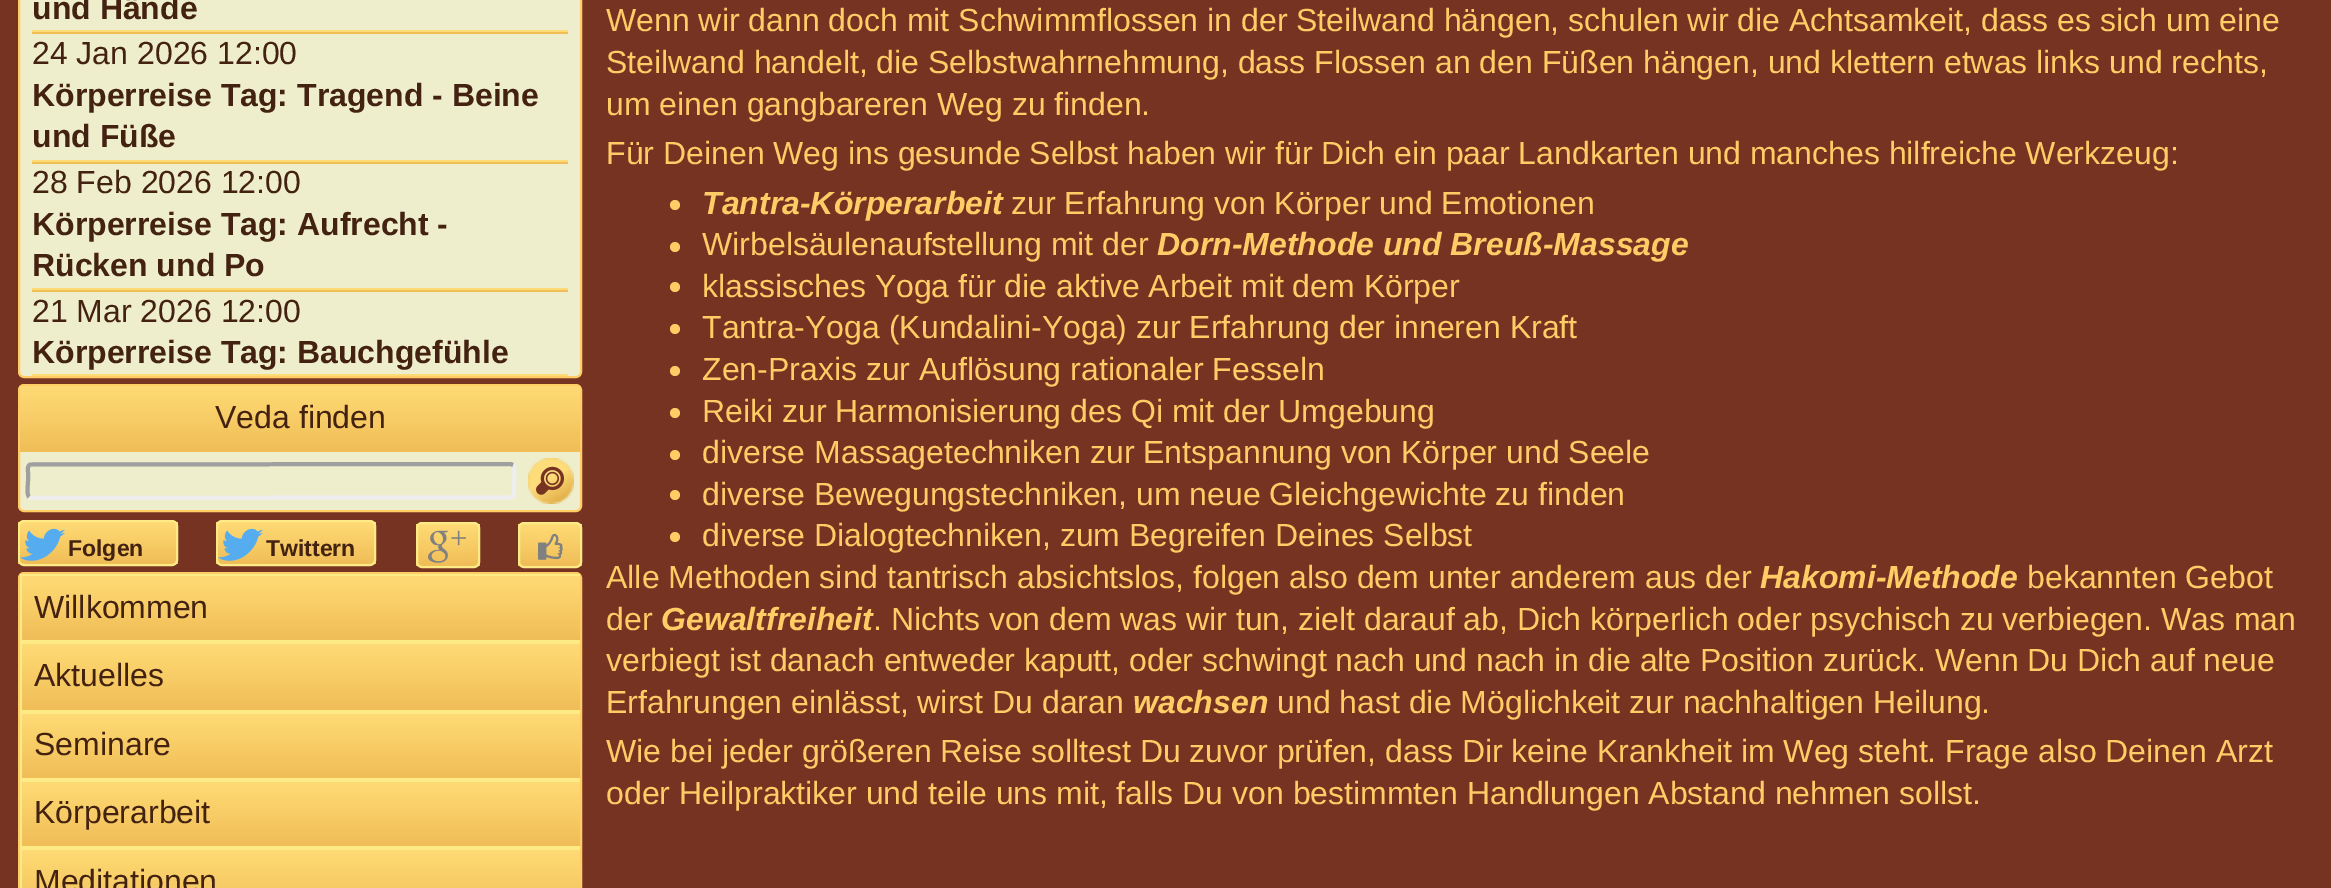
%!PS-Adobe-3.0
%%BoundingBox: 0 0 2331 888
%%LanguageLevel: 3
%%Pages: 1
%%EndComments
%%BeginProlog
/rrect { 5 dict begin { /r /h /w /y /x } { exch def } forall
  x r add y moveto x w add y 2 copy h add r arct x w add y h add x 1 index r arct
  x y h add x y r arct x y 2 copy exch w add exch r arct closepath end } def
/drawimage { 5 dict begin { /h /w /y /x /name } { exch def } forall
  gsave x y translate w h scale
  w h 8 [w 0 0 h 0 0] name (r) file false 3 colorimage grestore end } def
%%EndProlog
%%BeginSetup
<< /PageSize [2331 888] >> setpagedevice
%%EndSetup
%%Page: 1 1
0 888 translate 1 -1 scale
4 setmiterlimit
0.467 0.2 0.133 setrgbcolor
0 0 2331 888 rectfill
0.933 0.933 0.8 setrgbcolor
19 -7 562 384 5 rrect gsave fill grestore
1 0.8 0.4 setrgbcolor
2 setlinewidth
stroke
1 0.859 0.459 setrgbcolor
32 30 536 2 rectfill
0.941 0.741 0.341 setrgbcolor
32 32 536 2 rectfill
1 0.859 0.459 setrgbcolor
32 160 536 2 rectfill
0.941 0.741 0.341 setrgbcolor
32 162 536 2 rectfill
1 0.859 0.459 setrgbcolor
32 288 536 2 rectfill
0.941 0.741 0.341 setrgbcolor
32 290 536 2 rectfill
1 0.859 0.459 setrgbcolor
32 374 536 2 rectfill
0.933 0.933 0.8 setrgbcolor
19 385 562 126 5 rrect gsave fill grestore
1 0.8 0.4 setrgbcolor
stroke
gsave newpath 20 386 moveto 580 386 lineto 580 452 lineto 20 452 lineto closepath clip newpath
<< /ShadingType 2 /ColorSpace /DeviceRGB /Coords [300 386 300 452] /Extend [true true] /Function << /FunctionType 2 /Domain [0 1] /C0 [1 0.859 0.459] /C1 [0.941 0.741 0.341] /N 1 >> >> shfill grestore
0.933 setgray
4 setlinewidth
newpath 513 465 moveto 515.5 467.5 514 478 514 481 curveto 514 489.5 lineto 514 492.5 515 496.5 511.5 497.5 curveto 31.5 498 lineto 29 497 lineto stroke
0.624 setgray
newpath 29 497 moveto 26.5 494.5 28 484 28 481 curveto 28 472.5 lineto 28 469.5 27 465.5 30.5 464.5 curveto 510.5 464 lineto 513 465 lineto stroke
(images/1.raw) 528 458 46 46 drawimage
(images/2.raw) 536 466 28 29 drawimage
gsave
18 520 160 46 6 rrect clip newpath
gsave newpath 18 522 moveto 178 522 lineto 178 564 lineto 18 564 lineto closepath clip newpath
<< /ShadingType 2 /ColorSpace /DeviceRGB /Coords [98 522 98 564] /Extend [true true] /Function << /FunctionType 2 /Domain [0 1] /C0 [1 0.859 0.459] /C1 [0.941 0.741 0.341] /N 1 >> >> shfill grestore
grestore
1 0.922 0.522 setrgbcolor
2 setlinewidth
19 521 158 44 5 rrect stroke
(images/3.raw) 20 528 45 33 drawimage
gsave
216 520 160 46 6 rrect clip newpath
gsave newpath 216 522 moveto 376 522 lineto 376 564 lineto 216 564 lineto closepath clip newpath
<< /ShadingType 2 /ColorSpace /DeviceRGB /Coords [296 522 296 564] /Extend [true true] /Function << /FunctionType 2 /Domain [0 1] /C0 [1 0.859 0.459] /C1 [0.941 0.741 0.341] /N 1 >> >> shfill grestore
grestore
217 521 158 44 5 rrect stroke
(images/3.raw) 218 528 45 33 drawimage
gsave
416 522 64 46 6 rrect clip newpath
gsave newpath 416 524 moveto 480 524 lineto 480 566 lineto 416 566 lineto closepath clip newpath
<< /ShadingType 2 /ColorSpace /DeviceRGB /Coords [448 524 448 566] /Extend [true true] /Function << /FunctionType 2 /Domain [0 1] /C0 [1 0.859 0.459] /C1 [0.941 0.741 0.341] /N 1 >> >> shfill grestore
grestore
417 523 62 44 5 rrect stroke
(images/4.raw) 428 530 38 33 drawimage
gsave
518 522 64 46 6 rrect clip newpath
gsave newpath 518 524 moveto 582 524 lineto 582 566 lineto 518 566 lineto closepath clip newpath
<< /ShadingType 2 /ColorSpace /DeviceRGB /Coords [550 524 550 566] /Extend [true true] /Function << /FunctionType 2 /Domain [0 1] /C0 [1 0.859 0.459] /C1 [0.941 0.741 0.341] /N 1 >> >> shfill grestore
grestore
519 523 62 44 5 rrect stroke
(images/5.raw) 538 533 25 27 drawimage
1 0.8 0.4 setrgbcolor
19 573 562 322 5 rrect stroke
gsave newpath 22 576 moveto 580 576 lineto 580 640 lineto 22 640 lineto closepath clip newpath
<< /ShadingType 2 /ColorSpace /DeviceRGB /Coords [301 576 301 640] /Extend [true true] /Function << /FunctionType 2 /Domain [0 1] /C0 [1 0.859 0.459] /C1 [0.941 0.741 0.341] /N 1 >> >> shfill grestore
1 0.922 0.522 setrgbcolor
20 574 560 2 rectfill
20 640 560 4 rectfill
20 574 2 68 rectfill
gsave newpath 22 644 moveto 580 644 lineto 580 710 lineto 22 710 lineto closepath clip newpath
<< /ShadingType 2 /ColorSpace /DeviceRGB /Coords [301 644 301 710] /Extend [true true] /Function << /FunctionType 2 /Domain [0 1] /C0 [1 0.859 0.459] /C1 [0.941 0.741 0.341] /N 1 >> >> shfill grestore
20 710 560 4 rectfill
20 642 2 70 rectfill
gsave newpath 22 714 moveto 580 714 lineto 580 778 lineto 22 778 lineto closepath clip newpath
<< /ShadingType 2 /ColorSpace /DeviceRGB /Coords [301 714 301 778] /Extend [true true] /Function << /FunctionType 2 /Domain [0 1] /C0 [1 0.859 0.459] /C1 [0.941 0.741 0.341] /N 1 >> >> shfill grestore
20 778 560 4 rectfill
20 712 2 68 rectfill
gsave newpath 22 782 moveto 580 782 lineto 580 846 lineto 22 846 lineto closepath clip newpath
<< /ShadingType 2 /ColorSpace /DeviceRGB /Coords [301 782 301 846] /Extend [true true] /Function << /FunctionType 2 /Domain [0 1] /C0 [1 0.859 0.459] /C1 [0.941 0.741 0.341] /N 1 >> >> shfill grestore
20 846 560 4 rectfill
20 780 2 108 rectfill
gsave newpath 22 850 moveto 580 850 lineto 580 888 lineto 22 888 lineto closepath clip newpath
<< /ShadingType 2 /ColorSpace /DeviceRGB /Coords [301 850 301 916] /Extend [true true] /Function << /FunctionType 2 /Domain [0 1] /C0 [1 0.859 0.459] /C1 [0.941 0.741 0.341] /N 1 >> >> shfill grestore
1 0.8 0.4 setrgbcolor
newpath 675 205 5 0 360 arc closepath fill
newpath 675 247 5 0 360 arc closepath fill
newpath 675 287 5 0 360 arc closepath fill
newpath 675 329 5 0 360 arc closepath fill
newpath 675 371 5 0 360 arc closepath fill
newpath 675 413 5 0 360 arc closepath fill
newpath 675 455 5 0 360 arc closepath fill
newpath 675 495 5 0 360 arc closepath fill
newpath 675 537 5 0 360 arc closepath fill
/LiberationSans-Bold [32 0 0 -32 0 0] selectfont
0.267 0.133 0.067 setrgbcolor
32 19 moveto (und Hände) show
/LiberationSans-Regular [32 0 0 -32 0 0] selectfont
32 64 moveto (24 Jan 2026 12:00) show
/LiberationSans-Bold [32 0 0 -32 0 0] selectfont
32 106 moveto (Körperreise Tag: Tragend - Beine) show
32 147 moveto (und Füße) show
/LiberationSans-Regular [32 0 0 -32 0 0] selectfont
32 193 moveto (28 Feb 2026 12:00) show
/LiberationSans-Bold [32 0 0 -32 0 0] selectfont
32 235 moveto (Körperreise Tag: Aufrecht -) show
32 276 moveto (Rücken und Po) show
/LiberationSans-Regular [32 0 0 -32 0 0] selectfont
32 322 moveto (21 Mar 2026 12:00) show
/LiberationSans-Bold [32 0 0 -32 0 0] selectfont
32 363 moveto (Körperreise Tag: Bauchgefühle) show
/LiberationSans-Regular [32 0 0 -32 0 0] selectfont
215 428 moveto (Veda finden) show
/LiberationSans-Bold [23 0 0 -23 0 0] selectfont
68 556 moveto (Folgen) show
266 556 moveto (Twittern) show
/LiberationSans-Regular [32 0 0 -32 0 0] selectfont
34 618 moveto (Willkommen) show
34 686 moveto (Aktuelles) show
34 755 moveto (Seminare) show
34 823 moveto (Körperarbeit) show
34 892 moveto (Meditationen) show
1 0.8 0.4 setrgbcolor
606 31 moveto (Wenn wir dann doch mit Schwimmflossen in der Steilwand hängen, schulen wir die Achtsamkeit, dass es sich um eine) show
606 73 moveto (Steilwand handelt, die Selbstwahrnehmung, dass Flossen an den Füßen hängen, und klettern etwas links und rechts,) show
606 115 moveto (um einen gangbareren Weg zu finden.) show
606 164 moveto (Für Deinen Weg ins gesunde Selbst haben wir für Dich ein paar Landkarten und manches hilfreiche Werkzeug:) show
/LiberationSans-BoldItalic [32 0 0 -32 0 0] selectfont
702 214 moveto (Tantra-Körperarbeit) show
/LiberationSans-Regular [32 0 0 -32 0 0] selectfont
1011 214 moveto (zur Erfahrung von Körper und Emotionen) show
702 255 moveto (Wirbelsäulenaufstellung mit der) show
/LiberationSans-BoldItalic [32 0 0 -32 0 0] selectfont
1157 255 moveto (Dorn-Methode und Breuß-Massage) show
/LiberationSans-Regular [32 0 0 -32 0 0] selectfont
702 297 moveto (klassisches Yoga für die aktive Arbeit mit dem Körper) show
702 338 moveto (Tantra-Yoga \(Kundalini-Yoga\) zur Erfahrung der inneren Kraft) show
702 380 moveto (Zen-Praxis zur Auflösung rationaler Fesseln) show
702 422 moveto (Reiki zur Harmonisierung des Qi mit der Umgebung) show
702 463 moveto (diverse Massagetechniken zur Entspannung von Körper und Seele) show
702 505 moveto (diverse Bewegungstechniken, um neue Gleichgewichte zu finden) show
702 546 moveto (diverse Dialogtechniken, zum Begreifen Deines Selbst) show
606 588 moveto (Alle Methoden sind tantrisch absichtslos, folgen also dem unter anderem aus der) show
/LiberationSans-BoldItalic [32 0 0 -32 0 0] selectfont
1760 588 moveto (Hakomi-Methode) show
/LiberationSans-Regular [32 0 0 -32 0 0] selectfont
2027 588 moveto (bekannten Gebot) show
606 630 moveto (der) show
/LiberationSans-BoldItalic [32 0 0 -32 0 0] selectfont
661 630 moveto (Gewaltfreiheit) show
/LiberationSans-Regular [32 0 0 -32 0 0] selectfont
873 630 moveto (. Nichts von dem was wir tun, zielt darauf ab, Dich körperlich oder psychisch zu verbiegen. Was man) show
606 671 moveto (verbiegt ist danach entweder kaputt, oder schwingt nach und nach in die alte Position zurück. Wenn Du Dich auf neue) show
606 713 moveto (Erfahrungen einlässt, wirst Du daran) show
/LiberationSans-BoldItalic [32 0 0 -32 0 0] selectfont
1133 713 moveto (wachsen) show
/LiberationSans-Regular [32 0 0 -32 0 0] selectfont
1277 713 moveto (und hast die Möglichkeit zur nachhaltigen Heilung.) show
606 762 moveto (Wie bei jeder größeren Reise solltest Du zuvor prüfen, dass Dir keine Krankheit im Weg steht. Frage also Deinen Arzt) show
606 804 moveto (oder Heilpraktiker und teile uns mit, falls Du von bestimmten Handlungen Abstand nehmen sollst.) show
showpage
%%EOF
